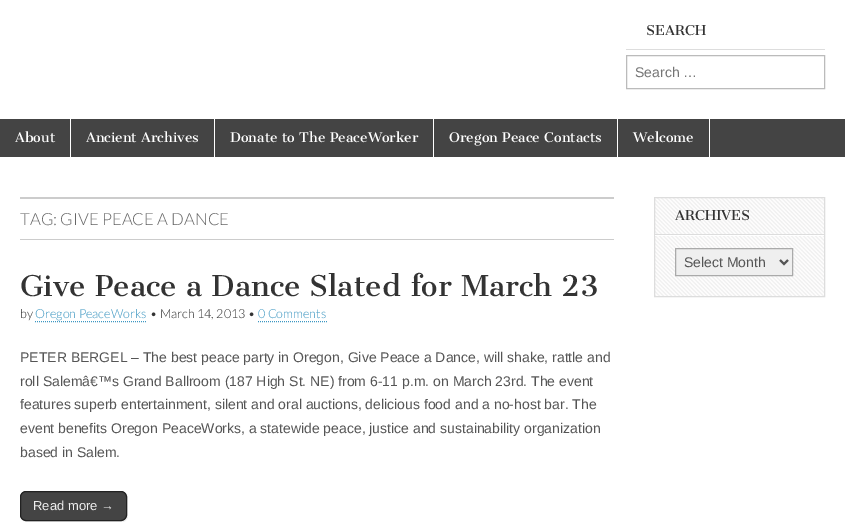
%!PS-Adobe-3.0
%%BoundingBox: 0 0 845 525
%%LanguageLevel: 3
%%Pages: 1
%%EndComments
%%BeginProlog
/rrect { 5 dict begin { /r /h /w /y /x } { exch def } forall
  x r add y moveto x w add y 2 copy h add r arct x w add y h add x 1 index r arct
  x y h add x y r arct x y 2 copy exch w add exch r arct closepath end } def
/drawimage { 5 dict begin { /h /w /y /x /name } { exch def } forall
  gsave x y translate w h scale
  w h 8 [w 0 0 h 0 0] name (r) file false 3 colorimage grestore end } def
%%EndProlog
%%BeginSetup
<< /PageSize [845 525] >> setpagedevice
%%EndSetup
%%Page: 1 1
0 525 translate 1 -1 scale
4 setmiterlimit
1 setgray
0 0 845 525 rectfill
0.867 setgray
626 49 199 1 rectfill
0.733 setgray
626.5 55.5 198 33 rectstroke
0.267 setgray
0 119 845 38 rectfill
1 setgray
70 119 1 38 rectfill
214 119 1 38 rectfill
433 119 1 38 rectfill
617 119 1 38 rectfill
709 119 1 38 rectfill
0.8 setgray
20 197 594 2 rectfill
20 239 594 1 rectfill
0.239 0.592 0.761 setrgbcolor
[1 1] 0 setdash
newpath 35 321.5 moveto 147 321.5 lineto stroke
newpath 258 321.5 moveto 327 321.5 lineto stroke
0.933 setgray
newpath 22 520 moveto 23 521 25 522 27 522 curveto 122 522 lineto 125 522 128 519 128 516 curveto 128 498 lineto 128 496 127 494 126 493 curveto 127 494 127 496 127 497 curveto 127 515 lineto 127 518 124 521 121 521 curveto 26 521 lineto 25 521 23 521 22 520 curveto closepath fill
0.267 setgray
20.5 491.5 106 29 5.5 rrect gsave fill grestore
0.133 setgray
[] 0 setdash
stroke
(images/1.raw) 655 198 169 98 drawimage
0.867 setgray
654.5 197.5 170 99 rectstroke
1 setgray
655 235 169 1 rectfill
0.867 setgray
655 234 169 1 rectfill
0.937 setgray
newpath 675.5 248.5 moveto 792.5 248.5 lineto 792.5 275.5 lineto 675.5 275.5 lineto closepath gsave fill grestore
0.667 setgray
stroke
0.333 setgray
2 setlinewidth
newpath 780 260 moveto 784 264 lineto 788 260 lineto stroke
/CantataOne-Regular [13.25 0 0 -13.25 0 0] selectfont
0.2 setgray
646 35 moveto (SEARCH) show
/LiberationSans-Regular [14 0 0 -14 0 0] selectfont
0.459 setgray
635 77 moveto (Search …) show
/CantataOne-Regular [13 0 0 -13 0 0] selectfont
1 setgray
15 142 moveto (About) show
86 142 moveto (Ancient Archives) show
230 142 moveto (Donate to The PeaceWorker) show
449 142 moveto (Oregon Peace Contacts) show
633 142 moveto (Welcome) show
/Lato-Light [16.75 0 0 -16.75 0 0] selectfont
0.4 setgray
20 225 moveto (TAG: GIVE PEACE A DANCE) show
/CantataOne-Regular [28 0 0 -28 0 0] selectfont
0.2 setgray
20 296 moveto (Give Peace a Dance Slated for March 23) show
/Lato-Light [12.5 0 0 -12.5 0 0] selectfont
20 318 moveto (by) show
0.239 0.592 0.761 setrgbcolor
35 318 moveto (Oregon PeaceWorks) show
0.2 setgray
150 318 moveto (• March 14, 2013 •) show
0.239 0.592 0.761 setrgbcolor
258 318 moveto (0 Comments) show
/LiberationSans-Regular [14 0 0 -14 0 0] selectfont
0.333 setgray
20 362 moveto (PETER BERGEL – The best peace party in Oregon, Give Peace a Dance, will shake, rattle and) show
20 386 moveto (roll Salemâ€™s Grand Ballroom \(187 High St. NE\) from 6-11 p.m. on March 23rd. The event) show
20 409 moveto (features superb entertainment, silent and oral auctions, delicious food and a no-host bar. The) show
20 433 moveto (event benefits Oregon PeaceWorks, a statewide peace, justice and sustainability organization) show
20 457 moveto (based in Salem.) show
/LiberationSans-Regular [13 0 0 -13 0 0] selectfont
0.933 setgray
33 510 moveto (Read more →) show
/CantataOne-Regular [13.25 0 0 -13.25 0 0] selectfont
0.2 setgray
675 220 moveto (ARCHIVES) show
/LiberationSans-Regular [14 0 0 -14 0 0] selectfont
0.333 setgray
684 267 moveto (Select Month) show
showpage
%%EOF
